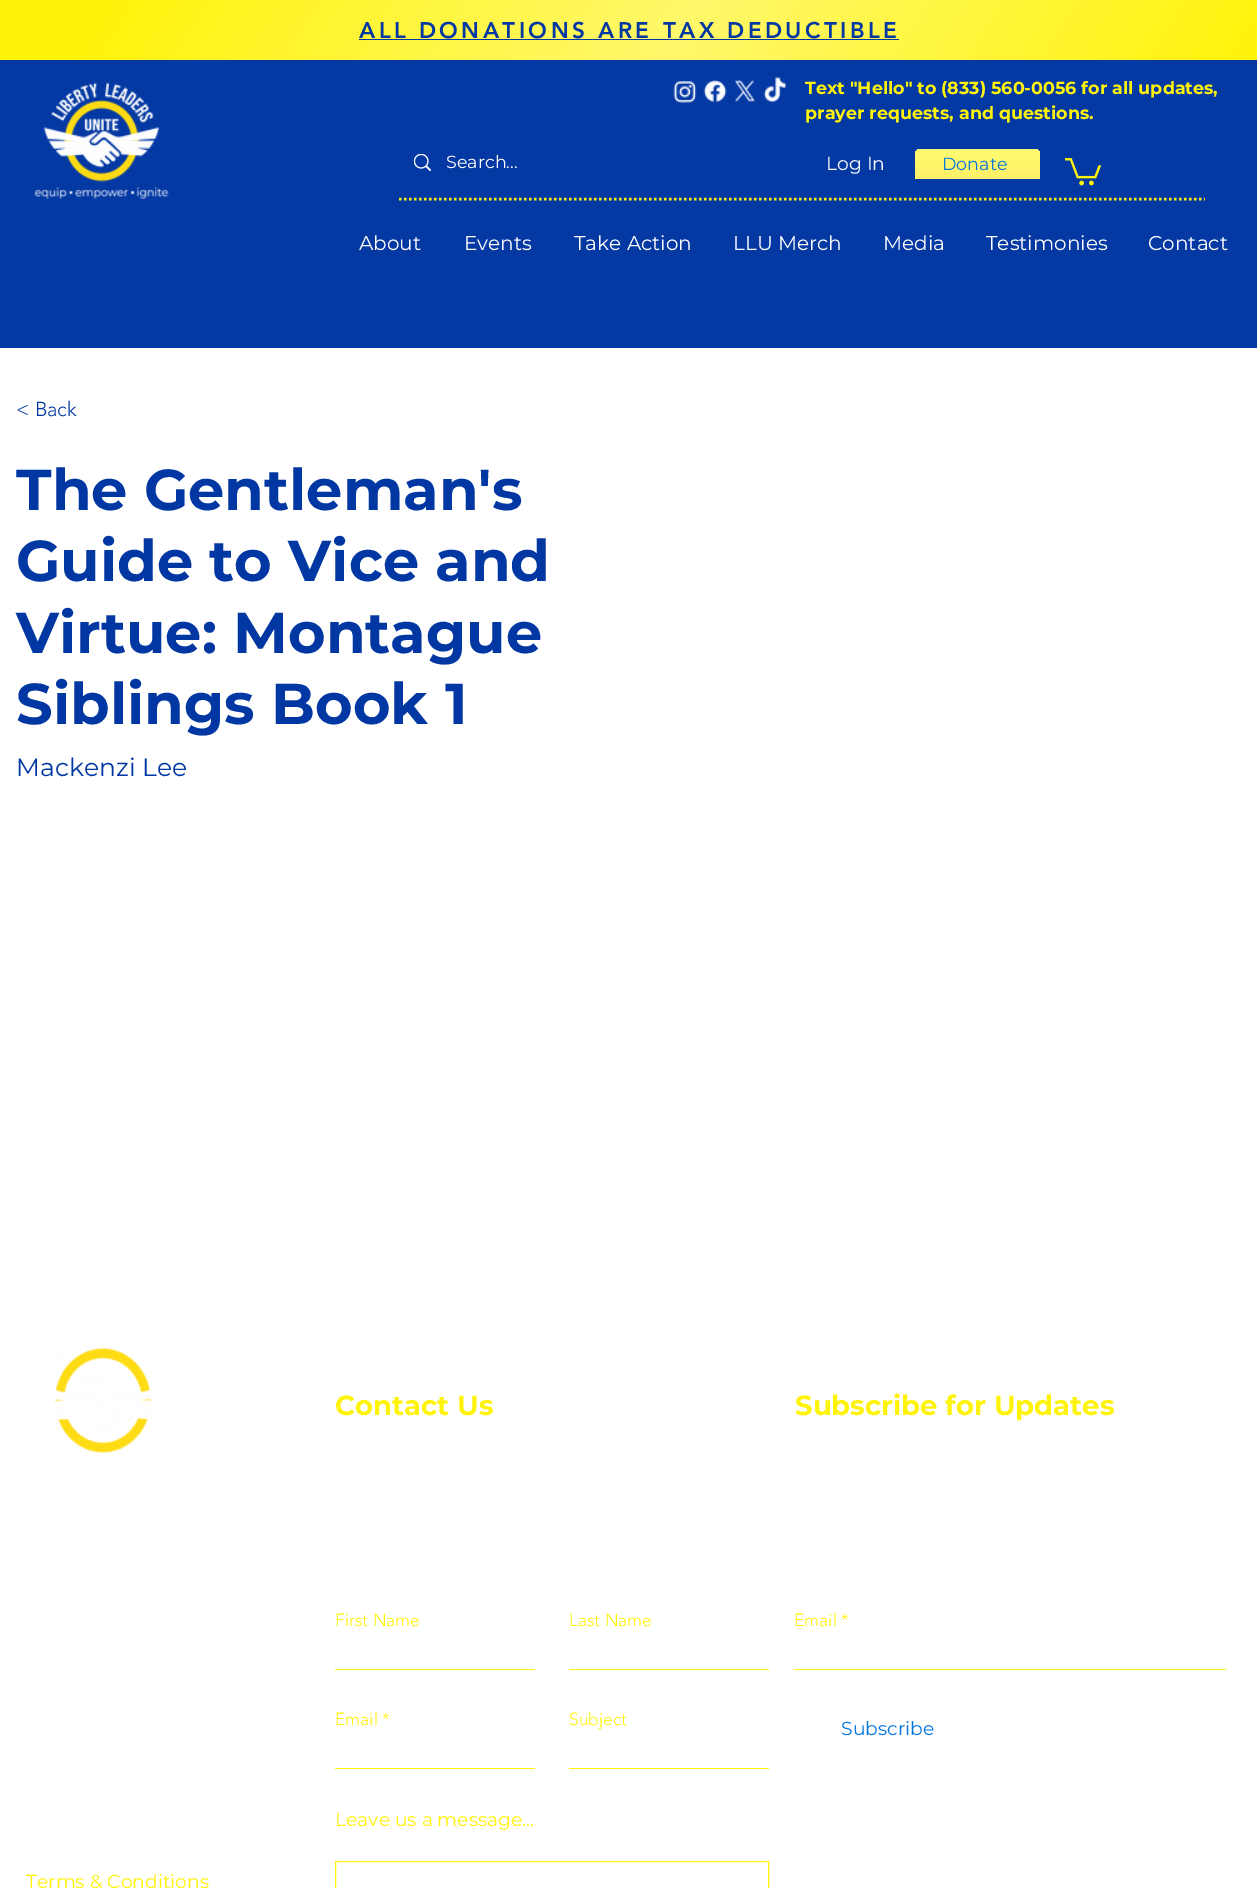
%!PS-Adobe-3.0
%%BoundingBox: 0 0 1257 1888
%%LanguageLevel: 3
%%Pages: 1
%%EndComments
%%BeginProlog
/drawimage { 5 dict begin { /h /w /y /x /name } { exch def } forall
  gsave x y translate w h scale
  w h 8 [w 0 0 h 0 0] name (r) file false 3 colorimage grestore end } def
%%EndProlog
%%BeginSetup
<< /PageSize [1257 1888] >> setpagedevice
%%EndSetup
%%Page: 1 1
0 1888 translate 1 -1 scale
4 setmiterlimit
1 setgray
0 0 1257 1888 rectfill
gsave newpath 0 0 moveto 1257 0 lineto 1257 60 lineto 0 60 lineto closepath clip newpath
<< /ShadingType 2 /ColorSpace /DeviceRGB /Coords [1094 321 163 -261] /Extend [true true] /Function << /FunctionType 3 /Domain [0 1] /Functions [<< /FunctionType 2 /Domain [0 1] /C0 [1 0.953 0.039] /C1 [1 0.973 0.42] /N 1 >> << /FunctionType 2 /Domain [0 1] /C0 [1 0.973 0.42] /C1 [1 0.953 0.039] /N 1 >> << /FunctionType 2 /Domain [0 1] /C0 [1 0.953 0.039] /C1 [1 0.953 0.039] /N 1 >>] /Bounds [0.46 0.92] /Encode [0 1 0 1 0 1] >> >> shfill grestore
0.004 0.216 0.639 setrgbcolor
359 39 540 1 rectfill
0.016 0.224 0.643 setrgbcolor
0 60 1257 288 rectfill
(images/1.raw) 34 82 135 117 drawimage
(images/2.raw) 673 81 24 22 drawimage
(images/3.raw) 703 80 24 23 drawimage
(images/4.raw) 735 80 21 22 drawimage
(images/5.raw) 763 77 24 26 drawimage
(images/6.raw) 414 154 17 17 drawimage
gsave newpath 921 149 moveto 1034 149 lineto 1037.5 149 1040 151.5 1040 155 curveto 1040 179 lineto 915 179 lineto 915 155 lineto 915 151.5 917.5 149 921 149 curveto closepath clip newpath
<< /ShadingType 2 /ColorSpace /DeviceRGB /Coords [978 149 978 179] /Extend [true true] /Function << /FunctionType 3 /Domain [0 1] /Functions [<< /FunctionType 2 /Domain [0 1] /C0 [0.992 0.98 0.455] /C1 [1 0.973 0.42] /N 1 >> << /FunctionType 2 /Domain [0 1] /C0 [1 0.973 0.42] /C1 [1 0.937 0.416] /N 1 >>] /Bounds [0.43] /Encode [0 1 0 1] >> >> shfill grestore
(images/7.raw) 1065 158 37 28 drawimage
1 0.953 0.039 setrgbcolor
2.5 setlinewidth
[2.5 2.5] 0 setdash
newpath 399 199 moveto 1205 199 lineto stroke
335 1669 200 1 rectfill
569 1669 200 1 rectfill
335 1768 200 1 rectfill
569 1768 200 1 rectfill
1 setlinewidth
[] 0 setdash
335.5 1861.5 433 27 rectstroke
794 1669 432 1 rectfill
(images/8.raw) 54 1347 98 106 drawimage
/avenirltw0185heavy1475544-Black [22.5 0 0 -22.5 0 0] selectfont
0.004 0.216 0.639 setrgbcolor
359 38 moveto 3.4 0 (ALL DONATIONS ARE TAX DEDUCTIBLE) ashow
/Montserrat-Bold [17.5 0 0 -17.5 0 0] selectfont
1 0.953 0.039 setrgbcolor
805 94 moveto (Text "Hello" to \(833\) 560-0056 for all updates,) show
805 119 moveto (prayer requests, and questions.) show
/Montserrat-Regular [17.5 0 0 -17.5 0 0] selectfont
1 setgray
446 168 moveto (Search...) show
/Montserrat-Regular [18.75 0 0 -18.75 0 0] selectfont
826 170 moveto (Log In) show
/Montserrat-Regular [17.5 0 0 -17.5 0 0] selectfont
0.027 0.463 0.867 setrgbcolor
942 170 moveto (Donate) show
/Montserrat-Regular [20 0 0 -20 0 0] selectfont
1 setgray
359 250 moveto (About) show
464 250 moveto (Events) show
574 250 moveto (Take Action) show
733 250 moveto (LLU Merch) show
883 250 moveto (Media) show
986 250 moveto (Testimonies) show
1148 250 moveto (Contact) show
/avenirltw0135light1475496-Light [20 0 0 -20 0 0] selectfont
0.004 0.216 0.639 setrgbcolor
16 416 moveto (< Back) show
/Montserrat-Bold [57.5 0 0 -57.5 0 0] selectfont
16 510 moveto (The Gentleman's) show
16 581 moveto (Guide to Vice and) show
16 653 moveto (Virtue: Montague) show
16 724 moveto (Siblings Book 1) show
/Montserrat-Regular [25 0 0 -25 0 0] selectfont
16 776 moveto (Mackenzi Lee) show
/Montserrat-Bold [27.5 0 0 -27.5 0 0] selectfont
1 0.953 0.039 setrgbcolor
335 1415 moveto (Contact Us) show
/avenirltw0135light1475496-Light [17.5 0 0 -17.5 0 0] selectfont
335 1626 moveto (First Name) show
569 1626 moveto (Last Name) show
335 1725 moveto (Email *) show
569 1725 moveto (Subject) show
/Montserrat-Regular [18.75 0 0 -18.75 0 0] selectfont
335 1826 moveto (Leave us a message...) show
/Montserrat-Bold [27.5 0 0 -27.5 0 0] selectfont
795 1415 moveto (Subscribe for Updates) show
/avenirltw0135light1475496-Light [17.5 0 0 -17.5 0 0] selectfont
794 1626 moveto (Email *) show
/Montserrat-Regular [18.75 0 0 -18.75 0 0] selectfont
0.027 0.463 0.867 setrgbcolor
841 1735 moveto (Subscribe) show
1 0.953 0.039 setrgbcolor
26 1888 moveto (Terms & Conditions) show
showpage
%%EOF
